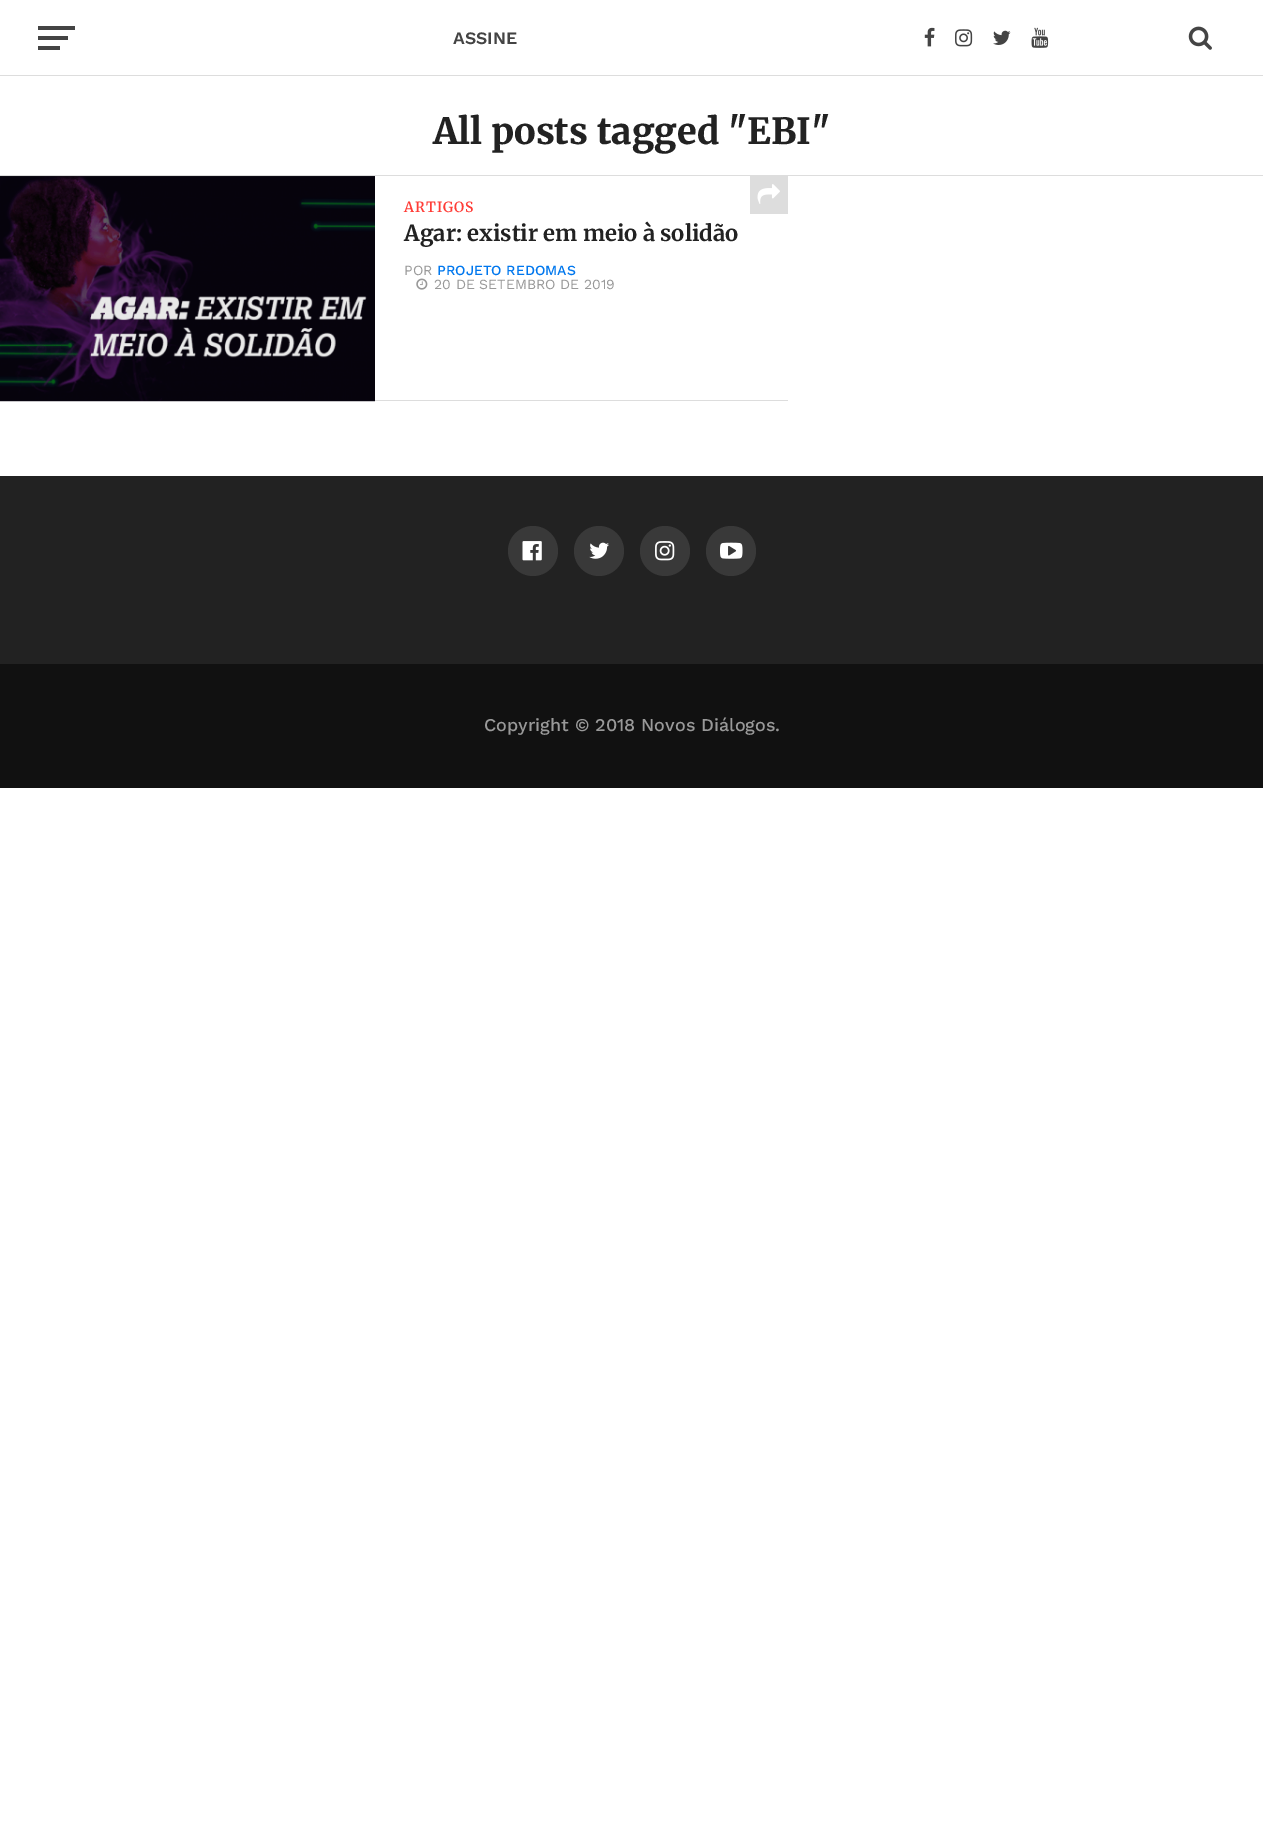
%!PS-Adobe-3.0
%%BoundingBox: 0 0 1263 1823
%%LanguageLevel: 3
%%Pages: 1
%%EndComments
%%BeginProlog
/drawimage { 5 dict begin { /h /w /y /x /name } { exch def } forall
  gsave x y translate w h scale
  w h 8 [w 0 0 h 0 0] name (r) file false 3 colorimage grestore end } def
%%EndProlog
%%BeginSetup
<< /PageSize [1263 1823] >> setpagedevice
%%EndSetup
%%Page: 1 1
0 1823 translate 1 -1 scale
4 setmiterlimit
1 setgray
0 0 1263 1823 rectfill
0.267 setgray
38 26 37 4 rectfill
38 36 30 4 rectfill
38 46 22 4 rectfill
(images/1.raw) 924 27 11 20 drawimage
(images/2.raw) 955 29 18 18 drawimage
(images/3.raw) 993 30 18 15 drawimage
(images/4.raw) 1031 27 18 21 drawimage
(images/5.raw) 1188 26 24 24 drawimage
0.867 setgray
0 75 1263 1 rectfill
0 175 1263 1 rectfill
0.133 setgray
0 176 375 225 rectfill
(images/6.raw) 0 176 375 226 drawimage
0.867 setgray
375 400 413 1 rectfill
750 176 38 38 rectfill
(images/7.raw) 757 184 23 20 drawimage
(images/8.raw) 416 278 12 12 drawimage
0.133 setgray
0 476 1263 188 rectfill
0.224 setgray
newpath 533 551 25 0 360 arc closepath fill
(images/9.raw) 522 541 20 20 drawimage
newpath 599 551 25 0 360 arc closepath fill
(images/10.raw) 589 542 20 17 drawimage
newpath 665 551 25 0 360 arc closepath fill
(images/11.raw) 655 541 20 20 drawimage
newpath 731 551 25 0 360 arc closepath fill
(images/12.raw) 720 542 23 17 drawimage
0.067 setgray
0 664 1263 124 rectfill
/WorkSans-SemiBold [17.5 0 0 -17.5 0 0] selectfont
0.267 setgray
453 44 moveto (ASSINE) show
/Merriweather-ExtraBold [36 0 0 -36 0 0] selectfont
0.133 setgray
433 144 moveto (All posts tagged "EBI") show
/Merriweather-SemiBold [14 0 0 -14 0 0] selectfont
1 0.235 0.212 setrgbcolor
404 212 moveto 1 0 (ARTIGOS) ashow
/Merriweather-Bold [22 0 0 -22 0 0] selectfont
0.133 setgray
404 241 moveto (Agar: existir em meio à solidão) show
/WorkSans-Regular [14 0 0 -14 0 0] selectfont
0.6 setgray
404 275 moveto (POR) show
/WorkSans-Medium [14 0 0 -14 0 0] selectfont
0 0.467 0.933 setrgbcolor
437 275 moveto (PROJETO REDOMAS) show
/WorkSans-Regular [14 0 0 -14 0 0] selectfont
0.6 setgray
434 289 moveto (20 DE SETEMBRO DE 2019) show
/WorkSans-Medium [18 0 0 -18 0 0] selectfont
484 731 moveto (Copyright © 2018 Novos Diálogos.) show
showpage
%%EOF
